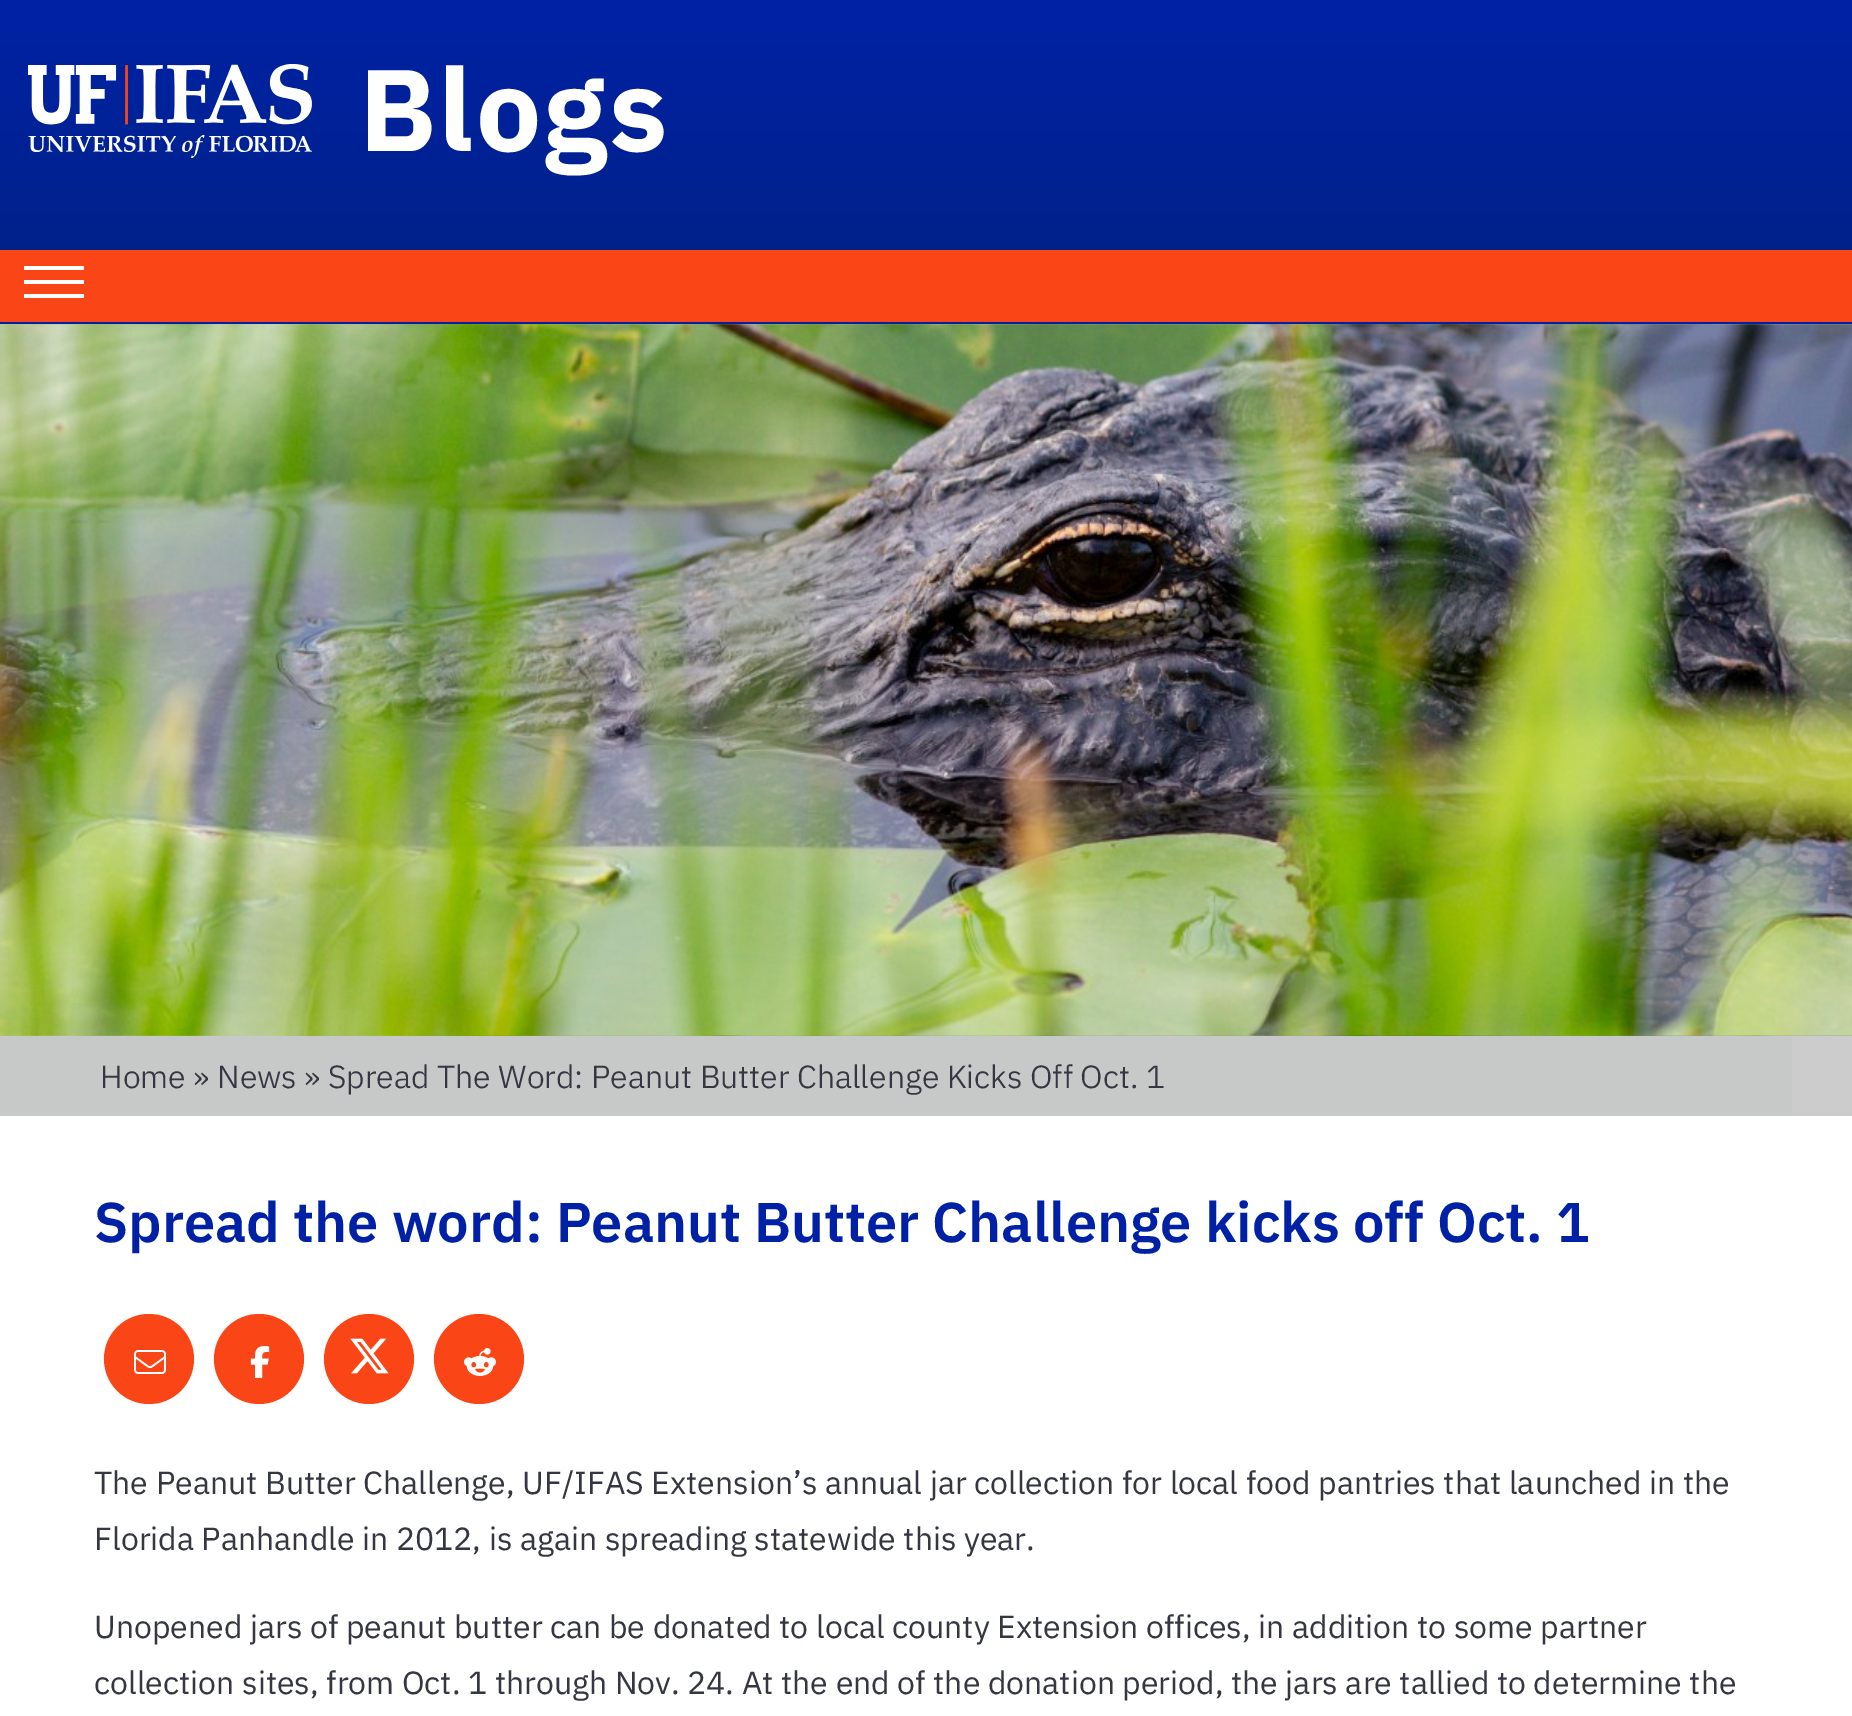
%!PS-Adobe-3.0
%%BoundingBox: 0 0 1852 1716
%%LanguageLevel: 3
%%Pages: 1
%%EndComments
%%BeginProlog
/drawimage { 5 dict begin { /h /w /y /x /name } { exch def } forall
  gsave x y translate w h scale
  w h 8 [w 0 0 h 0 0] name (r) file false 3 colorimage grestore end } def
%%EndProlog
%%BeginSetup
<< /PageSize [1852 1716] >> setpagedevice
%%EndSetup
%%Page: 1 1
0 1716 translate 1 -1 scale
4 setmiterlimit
1 setgray
0 0 1852 1716 rectfill
gsave newpath 0 0 moveto 1852 0 lineto 1852 250 lineto 0 250 lineto closepath clip newpath
<< /ShadingType 2 /ColorSpace /DeviceRGB /Coords [926 0 926 320] /Extend [true true] /Function << /FunctionType 2 /Domain [0 1] /C0 [0 0.129 0.647] /C1 [0 0.137 0.51] /N 1 >> >> shfill grestore
(images/1.raw) 28 64 284 94 drawimage
0.98 0.275 0.086 setrgbcolor
0 250 1852 72 rectfill
0.996 setgray
24 294 60 4 rectfill
24 280 60 4 rectfill
24 266 60 4 rectfill
(images/2.raw) 0 324 1852 712 drawimage
0 0.129 0.647 setrgbcolor
0 322 1852 2 rectfill
0.8 setgray
1792 1036 60 80 rectfill
0.78 0.788 0.784 setrgbcolor
0 1036 1792 80 rectfill
0.98 0.275 0.086 setrgbcolor
newpath 149 1359 45 0 360 arc closepath fill
(images/3.raw) 134 1350 32 24 drawimage
newpath 259 1359 45 0 360 arc closepath fill
(images/4.raw) 250 1346 20 32 drawimage
newpath 369 1359 45 0 360 arc closepath fill
(images/5.raw) 350 1338 39 36 drawimage
newpath 479 1359 45 0 360 arc closepath fill
(images/6.raw) 464 1348 32 28 drawimage
/IBMPlexSans-Bold [116 0 0 -116 0 0] selectfont
1 setgray
359 151 moveto 2 0 (Blogs) ashow
/IBMPlexSans-Light [32 0 0 -32 0 0] selectfont
0.204 0.216 0.255 setrgbcolor
100 1088 moveto (Home » News » Spread The Word: Peanut Butter Challenge Kicks Off Oct. 1) show
/IBMPlexSans-SemiBold [56 0 0 -56 0 0] selectfont
0 0.129 0.647 setrgbcolor
94 1242 moveto (Spread the word: Peanut Butter Challenge kicks off Oct. 1) show
/IBMPlexSans-Regular [32 0 0 -32 0 0] selectfont
0.204 0.216 0.255 setrgbcolor
94 1494 moveto (The Peanut Butter Challenge, UF/IFAS Extension’s annual jar collection for local food pantries that launched in the) show
94 1550 moveto (Florida Panhandle in 2012, is again spreading statewide this year.) show
94 1638 moveto (Unopened jars of peanut butter can be donated to local county Extension offices, in addition to some partner) show
94 1694 moveto (collection sites, from Oct. 1 through Nov. 24. At the end of the donation period, the jars are tallied to determine the) show
showpage
%%EOF
